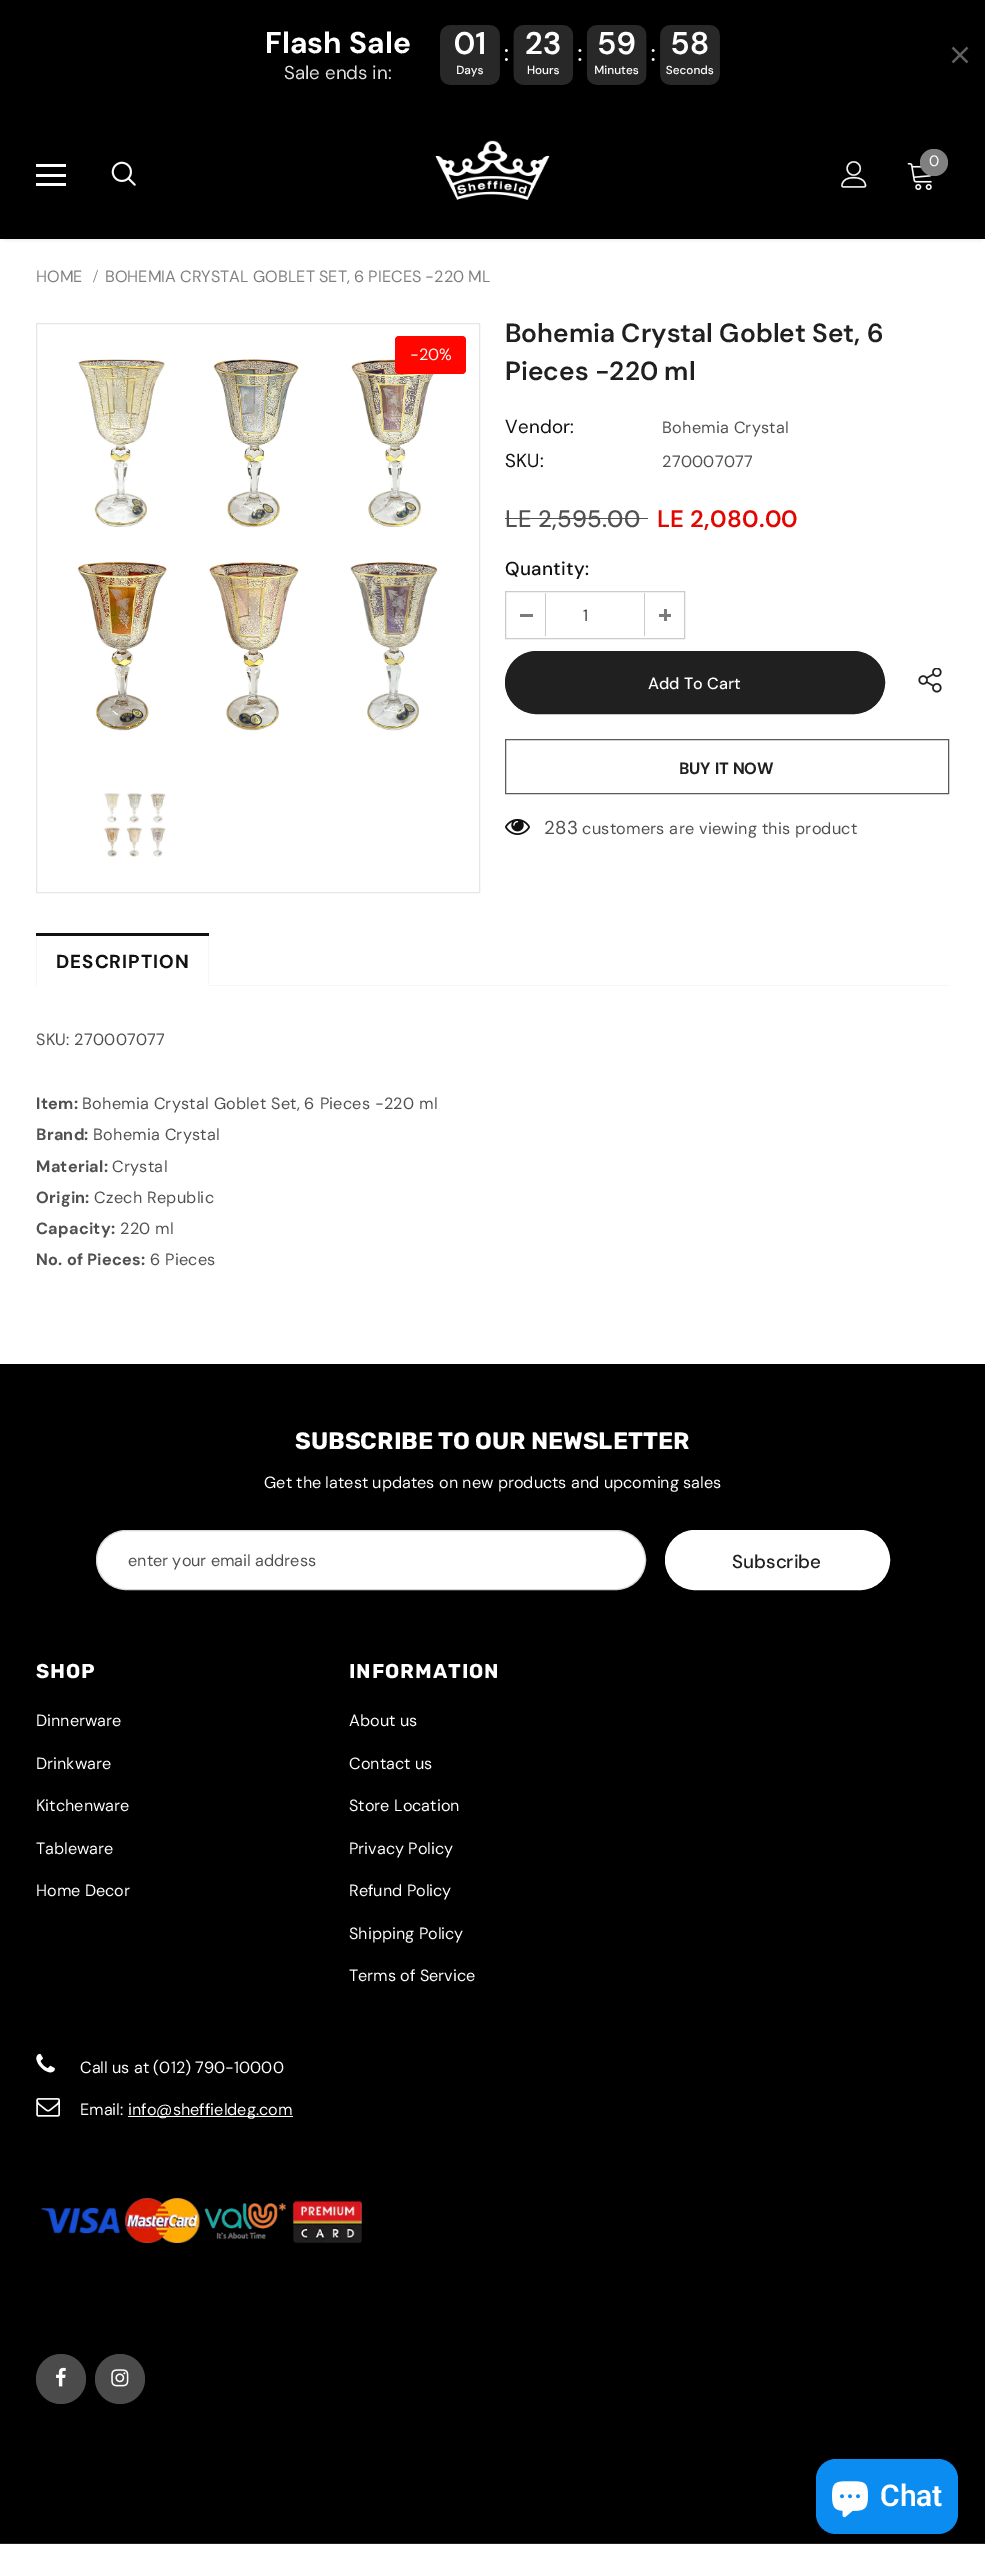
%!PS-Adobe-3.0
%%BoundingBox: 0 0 985 2560
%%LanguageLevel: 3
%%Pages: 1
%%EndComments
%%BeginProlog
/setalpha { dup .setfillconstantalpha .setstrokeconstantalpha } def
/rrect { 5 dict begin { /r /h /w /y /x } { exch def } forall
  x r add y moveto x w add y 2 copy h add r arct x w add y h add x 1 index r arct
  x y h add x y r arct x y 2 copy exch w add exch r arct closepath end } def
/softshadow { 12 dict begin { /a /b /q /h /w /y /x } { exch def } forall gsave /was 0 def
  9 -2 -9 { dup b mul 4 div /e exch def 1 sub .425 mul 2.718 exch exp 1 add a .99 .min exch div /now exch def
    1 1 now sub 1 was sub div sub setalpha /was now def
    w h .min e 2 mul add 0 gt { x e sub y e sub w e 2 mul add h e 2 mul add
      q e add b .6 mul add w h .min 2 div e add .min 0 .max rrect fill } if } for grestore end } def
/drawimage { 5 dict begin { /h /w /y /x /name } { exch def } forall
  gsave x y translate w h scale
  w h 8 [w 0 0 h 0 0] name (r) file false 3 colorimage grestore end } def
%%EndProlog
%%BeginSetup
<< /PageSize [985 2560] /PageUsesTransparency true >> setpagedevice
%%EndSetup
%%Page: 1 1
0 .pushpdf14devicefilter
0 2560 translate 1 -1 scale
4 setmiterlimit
1 setgray
0 0 985 2560 rectfill
0 setgray
4 118 977 121 0 2 0.12 softshadow
0 0 985 239 rectfill
(images/1.raw) 440 25 280 60 drawimage
(images/2.raw) 951 46 18 18 drawimage
1 setgray
36 164 30 3 rectfill
36 174 30 3 rectfill
36 183 30 3 rectfill
(images/3.raw) 111 161 25 25 drawimage
(images/4.raw) 435 140 115 60 drawimage
(images/5.raw) 841 161 26 27 drawimage
(images/6.raw) 907 162 25 28 drawimage
0.502 setgray
920 149 28 27 13.5 rrect fill
0.902 setgray
36.5 323.5 443 569 rectstroke
(images/7.raw) 77 358 361 373 drawimage
1 0.024 0 setrgbcolor
395 336 71 38 4 rrect fill
(images/8.raw) 104 793 62 64 drawimage
0.314 setgray
505 518 143 1 rectfill
0.796 setgray
505.5 591.5 179 47 rectstroke
545 593 1 43 rectfill
0.482 setgray
520 614 13 3 rectfill
0.796 setgray
644 593 1 43 rectfill
0.482 setgray
659 614 12 3 rectfill
664 609 3 12 rectfill
0.125 setgray
505.5 651.5 379 62 31 rrect gsave fill grestore
stroke
(images/9.raw) 918 668 24 25 drawimage
0.353 setgray
505.5 739.5 443 54 rectstroke
(images/10.raw) 505 818 25 17 drawimage
0.965 setgray
209 985 740 1 rectfill
208 933 1 53 rectfill
36 933 1 53 rectfill
0.067 setgray
36 933 173 3 rectfill
0 setgray
0 1364 985 1179 rectfill
1 setgray
96.5 1530.5 549 59 29.5 rrect gsave fill grestore
0.835 setgray
stroke
1 setgray
665.5 1530.5 224 59 29.5 rrect gsave fill grestore
stroke
(images/11.raw) 36 2053 19 20 drawimage
(images/12.raw) 36 2098 24 19 drawimage
128 2116 165 1 rectfill
(images/13.raw) 41 2198 321 45 drawimage
0.294 setgray
newpath 61 2379 25 0 360 arc closepath fill
(images/14.raw) 56 2367 10 20 drawimage
newpath 120 2379 25 0 360 arc closepath fill
(images/15.raw) 111 2369 18 18 drawimage
0.125 setgray
0 2543 985 1 rectfill
0.043 0.549 0.945 setrgbcolor
816 2459 142 75 20 rrect fill
(images/16.raw) 832 2481 36 37 drawimage
/DMSans-Bold [30 0 0 -30 0 0] selectfont
1 setgray
265 53 moveto (Flash Sale) show
/DMSans-Regular [18.75 0 0 -18.75 0 0] selectfont
0.878 setgray
284 79 moveto (Sale ends in:) show
/DMSans-Regular [15 0 0 -15 0 0] selectfont
1 setgray
929 166 moveto (0) show
/DMSans-Regular [16.25 0 0 -16.25 0 0] selectfont
0.502 setgray
36 282 moveto (HOME) show
/LiberationSerif-Regular [18.75 0 0 -18.75 0 0] selectfont
93 282 moveto (/) show
/DMSans-Regular [16.25 0 0 -16.25 0 0] selectfont
105 282 moveto (BOHEMIA CRYSTAL GOBLET SET, 6 PIECES -220 ML) show
0.973 setgray
410 360 moveto (-20%) show
/DMSans-SemiBold [26.25 0 0 -26.25 0 0] selectfont
0.125 setgray
505 342 moveto (Bohemia Crystal Goblet Set, 6) show
505 380 moveto (Pieces -220 ml) show
/DMSans-Regular [18.75 0 0 -18.75 0 0] selectfont
0.067 setgray
505 433 moveto 0.25 0 (Vendor:) ashow
/DMSans-Regular [16.25 0 0 -16.25 0 0] selectfont
0.314 setgray
662 433 moveto 0.25 0 (Bohemia Crystal) ashow
/DMSans-Regular [18.75 0 0 -18.75 0 0] selectfont
0.067 setgray
505 467 moveto 0.25 0 (SKU:) ashow
/DMSans-Regular [16.25 0 0 -16.25 0 0] selectfont
0.314 setgray
662 467 moveto 0.25 0 (270007077) ashow
/DMSans-Medium [23.75 0 0 -23.75 0 0] selectfont
505 527 moveto 0.25 0 (LE 2,595.00) ashow
/DMSans-SemiBold [23.75 0 0 -23.75 0 0] selectfont
0.882 0.024 0 setrgbcolor
657 527 moveto 0.25 0 (LE 2,080.00) ashow
/DMSans-Medium [18.75 0 0 -18.75 0 0] selectfont
0.067 setgray
505 575 moveto 0.25 0 (Quantity:) ashow
/DMSans-Regular [16.25 0 0 -16.25 0 0] selectfont
0.176 setgray
583 621 moveto (1) show
/DMSans-Medium [16.25 0 0 -16.25 0 0] selectfont
1 setgray
648 689 moveto (Add To Cart) show
/DMSans-Bold [16.25 0 0 -16.25 0 0] selectfont
0.125 setgray
679 774 moveto (BUY IT NOW) show
/DMSans-Regular [18.75 0 0 -18.75 0 0] selectfont
0.314 setgray
544 834 moveto 0.25 0 (283) ashow
/DMSans-Regular [16.25 0 0 -16.25 0 0] selectfont
582 834 moveto 0.25 0 (customers are viewing this product) ashow
/DMSans-Bold [18.75 0 0 -18.75 0 0] selectfont
0.067 setgray
56 968 moveto 1 0 (DESCRIPTION) ashow
/DMSans-Regular [16.25 0 0 -16.25 0 0] selectfont
0.314 setgray
36 1045 moveto 0.25 0 (SKU: 270007077) ashow
/DMSans-Bold [16.25 0 0 -16.25 0 0] selectfont
36 1109 moveto 0.25 0 (Item:) ashow
/DMSans-Regular [16.25 0 0 -16.25 0 0] selectfont
82 1109 moveto 0.25 0 (Bohemia Crystal Goblet Set, 6 Pieces -220 ml) ashow
/DMSans-Bold [16.25 0 0 -16.25 0 0] selectfont
36 1140 moveto 0.25 0 (Brand:) ashow
/DMSans-Regular [16.25 0 0 -16.25 0 0] selectfont
93 1140 moveto 0.25 0 (Bohemia Crystal) ashow
/DMSans-Bold [16.25 0 0 -16.25 0 0] selectfont
36 1172 moveto 0.25 0 (Material:) ashow
/DMSans-Regular [16.25 0 0 -16.25 0 0] selectfont
112 1172 moveto 0.25 0 (Crystal) ashow
/DMSans-Bold [16.25 0 0 -16.25 0 0] selectfont
36 1203 moveto 0.25 0 (Origin:) ashow
/DMSans-Regular [16.25 0 0 -16.25 0 0] selectfont
94 1203 moveto 0.25 0 (Czech Republic) ashow
/DMSans-Bold [16.25 0 0 -16.25 0 0] selectfont
36 1234 moveto 0.25 0 (Capacity:) ashow
/DMSans-Regular [16.25 0 0 -16.25 0 0] selectfont
120 1234 moveto 0.25 0 (220 ml) ashow
/DMSans-Bold [16.25 0 0 -16.25 0 0] selectfont
36 1265 moveto 0.25 0 (No. of Pieces:) ashow
/DMSans-Regular [16.25 0 0 -16.25 0 0] selectfont
150 1265 moveto 0.25 0 (6 Pieces) ashow
/Rubik-Bold [23.75 0 0 -23.75 0 0] selectfont
1 setgray
295 1449 moveto (SUBSCRIBE TO OUR NEWSLETTER) show
/DMSans-Regular [16.25 0 0 -16.25 0 0] selectfont
264 1488 moveto (Get the latest updates on new products and upcoming sales) show
0.314 setgray
128 1566 moveto (enter your email address) show
/DMSans-Medium [18.75 0 0 -18.75 0 0] selectfont
0.125 setgray
732 1568 moveto (Subscribe) show
/Rubik-Bold [20 0 0 -20 0 0] selectfont
1 setgray
36 1678 moveto 1 0 (SHOP) ashow
/DMSans-Regular [16.25 0 0 -16.25 0 0] selectfont
36 1726 moveto (Dinnerware) show
36 1769 moveto (Drinkware) show
36 1811 moveto (Kitchenware) show
36 1854 moveto (Tableware) show
36 1896 moveto (Home Decor) show
/Rubik-Bold [20 0 0 -20 0 0] selectfont
349 1678 moveto 1 0 (INFORMATION) ashow
/DMSans-Regular [16.25 0 0 -16.25 0 0] selectfont
349 1726 moveto (About us) show
349 1769 moveto (Contact us) show
349 1811 moveto (Store Location) show
349 1854 moveto (Privacy Policy) show
349 1896 moveto (Refund Policy) show
349 1939 moveto (Shipping Policy) show
349 1981 moveto (Terms of Service) show
80 2073 moveto (Call us at \(012\) 790-10000) show
80 2115 moveto (Email:) show
128 2115 moveto (info@sheffieldeg.com) show
/Roboto-SemiBold [30 0 0 -30 0 0] selectfont
880 2506 moveto (Chat) show
.poppdf14devicefilter showpage
%%EOF
